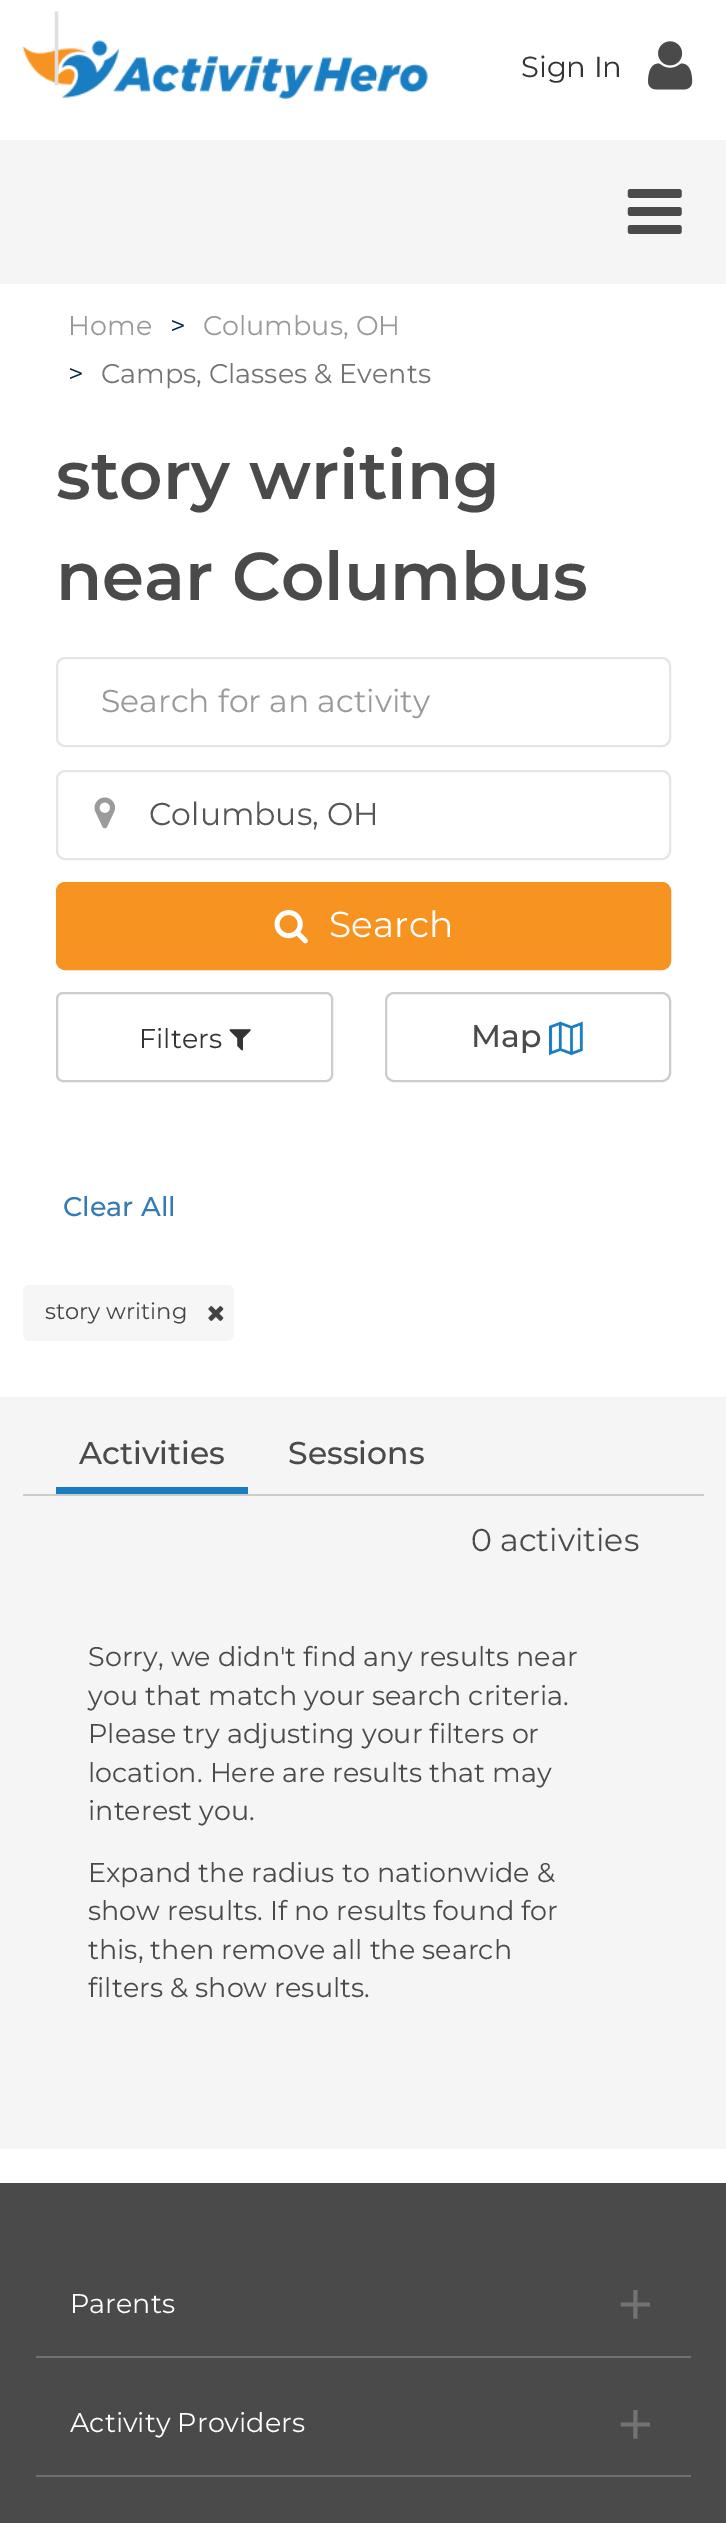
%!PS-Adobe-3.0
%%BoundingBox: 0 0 726 2523
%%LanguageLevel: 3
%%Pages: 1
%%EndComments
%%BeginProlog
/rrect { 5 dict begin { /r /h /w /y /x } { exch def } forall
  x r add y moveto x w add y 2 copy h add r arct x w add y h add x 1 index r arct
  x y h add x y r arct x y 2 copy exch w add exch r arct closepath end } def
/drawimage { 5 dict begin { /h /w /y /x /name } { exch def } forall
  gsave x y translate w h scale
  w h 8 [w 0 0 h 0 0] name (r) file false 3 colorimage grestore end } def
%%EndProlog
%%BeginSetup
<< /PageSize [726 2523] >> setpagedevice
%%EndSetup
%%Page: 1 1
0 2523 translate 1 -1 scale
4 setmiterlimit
1 setgray
0 0 726 2523 rectfill
0.898 setgray
2 setlinewidth
57 658 613 88 8 rrect stroke
57 771 613 88 8 rrect stroke
(images/1.raw) 94 797 21 32 drawimage
0.969 0.576 0.129 setrgbcolor
57 883 613 86 8 rrect gsave fill grestore
stroke
(images/2.raw) 274 910 34 34 drawimage
0.8 setgray
57 993 275 88 6 rrect stroke
(images/3.raw) 229 1029 22 22 drawimage
386 993 284 88 8 rrect stroke
(images/4.raw) 549 1021 34 35 drawimage
0.965 setgray
23 1285 211 56 7 rrect fill
(images/5.raw) 208 1306 16 15 drawimage
0.961 setgray
0 1397 726 752 rectfill
0.8 setgray
23 1494 681 2 rectfill
0.098 0.49 0.761 setrgbcolor
56 1487 192 7 rectfill
0.29 setgray
0 2183 726 340 rectfill
0.439 setgray
36 2356 655 2 rectfill
36 2475 655 2 rectfill
0.961 setgray
0 140 726 144 rectfill
(images/6.raw) 22 40 406 59 drawimage
(images/7.raw) 648 41 45 49 drawimage
(images/8.raw) 627 189 55 45 drawimage
/Montserrat-Light [79 0 0 -79 0 0] selectfont
0.875 setgray
45 70 moveto (|) show
/Montserrat-Regular [31.5 0 0 -31.5 0 0] selectfont
0.6 setgray
101 712 moveto (Search for an activity) show
0.333 setgray
149 825 moveto (Columbus, OH) show
/Montserrat-Regular [36 0 0 -36 0 0] selectfont
1 setgray
329 937 moveto (Search) show
/Montserrat-Regular [27 0 0 -27 0 0] selectfont
0.2 setgray
139 1048 moveto (Filters) show
/Montserrat-Medium [27 0 0 -27 0 0] selectfont
0.2 0.478 0.718 setrgbcolor
63 1216 moveto (Clear All) show
/Montserrat-Medium [31.5 0 0 -31.5 0 0] selectfont
0.29 setgray
471 1047 moveto (Map) show
/Montserrat-Regular [22.5 0 0 -22.5 0 0] selectfont
0.267 setgray
45 1319 moveto (story writing) show
/Montserrat-Medium [31.5 0 0 -31.5 0 0] selectfont
0.29 setgray
79 1464 moveto (Activities) show
288 1464 moveto (Sessions) show
/Montserrat-Regular [31.5 0 0 -31.5 0 0] selectfont
471 1551 moveto (0 activities) show
/Montserrat-Regular [27 0 0 -27 0 0] selectfont
88 1666 moveto (Sorry, we didn't find any results near) show
88 1705 moveto (you that match your search criteria.) show
88 1743 moveto (Please try adjusting your filters or) show
88 1782 moveto (location. Here are results that may) show
88 1820 moveto (interest you.) show
88 1882 moveto (Expand the radius to nationwide &) show
88 1920 moveto (show results. If no results found for) show
88 1959 moveto (this, then remove all the search) show
88 1997 moveto (filters & show results.) show
/Montserrat-SemiBold [67.5 0 0 -67.5 0 0] selectfont
56 499 moveto (story writing) show
56 600 moveto (near Columbus) show
/Montserrat-Regular [27 0 0 -27 0 0] selectfont
1 setgray
70 2313 moveto (Parents) show
/Montserrat-Regular [67.5 0 0 -67.5 0 0] selectfont
0.451 setgray
616 2328 moveto (+) show
/Montserrat-Regular [27 0 0 -27 0 0] selectfont
1 setgray
70 2432 moveto (Activity Providers) show
/Montserrat-Regular [67.5 0 0 -67.5 0 0] selectfont
0.451 setgray
616 2448 moveto (+) show
/Montserrat-Regular [29 0 0 -29 0 0] selectfont
0.2 setgray
521 77 moveto (Sign In) show
/Montserrat-Regular [27 0 0 -27 0 0] selectfont
0.6 setgray
68 335 moveto (Home) show
0 0.145 0.247 setrgbcolor
170 335 moveto (>) show
0.6 setgray
203 335 moveto (Columbus, OH) show
0 0.145 0.247 setrgbcolor
68 383 moveto (>) show
0.451 setgray
101 383 moveto (Camps, Classes & Events) show
showpage
%%EOF
